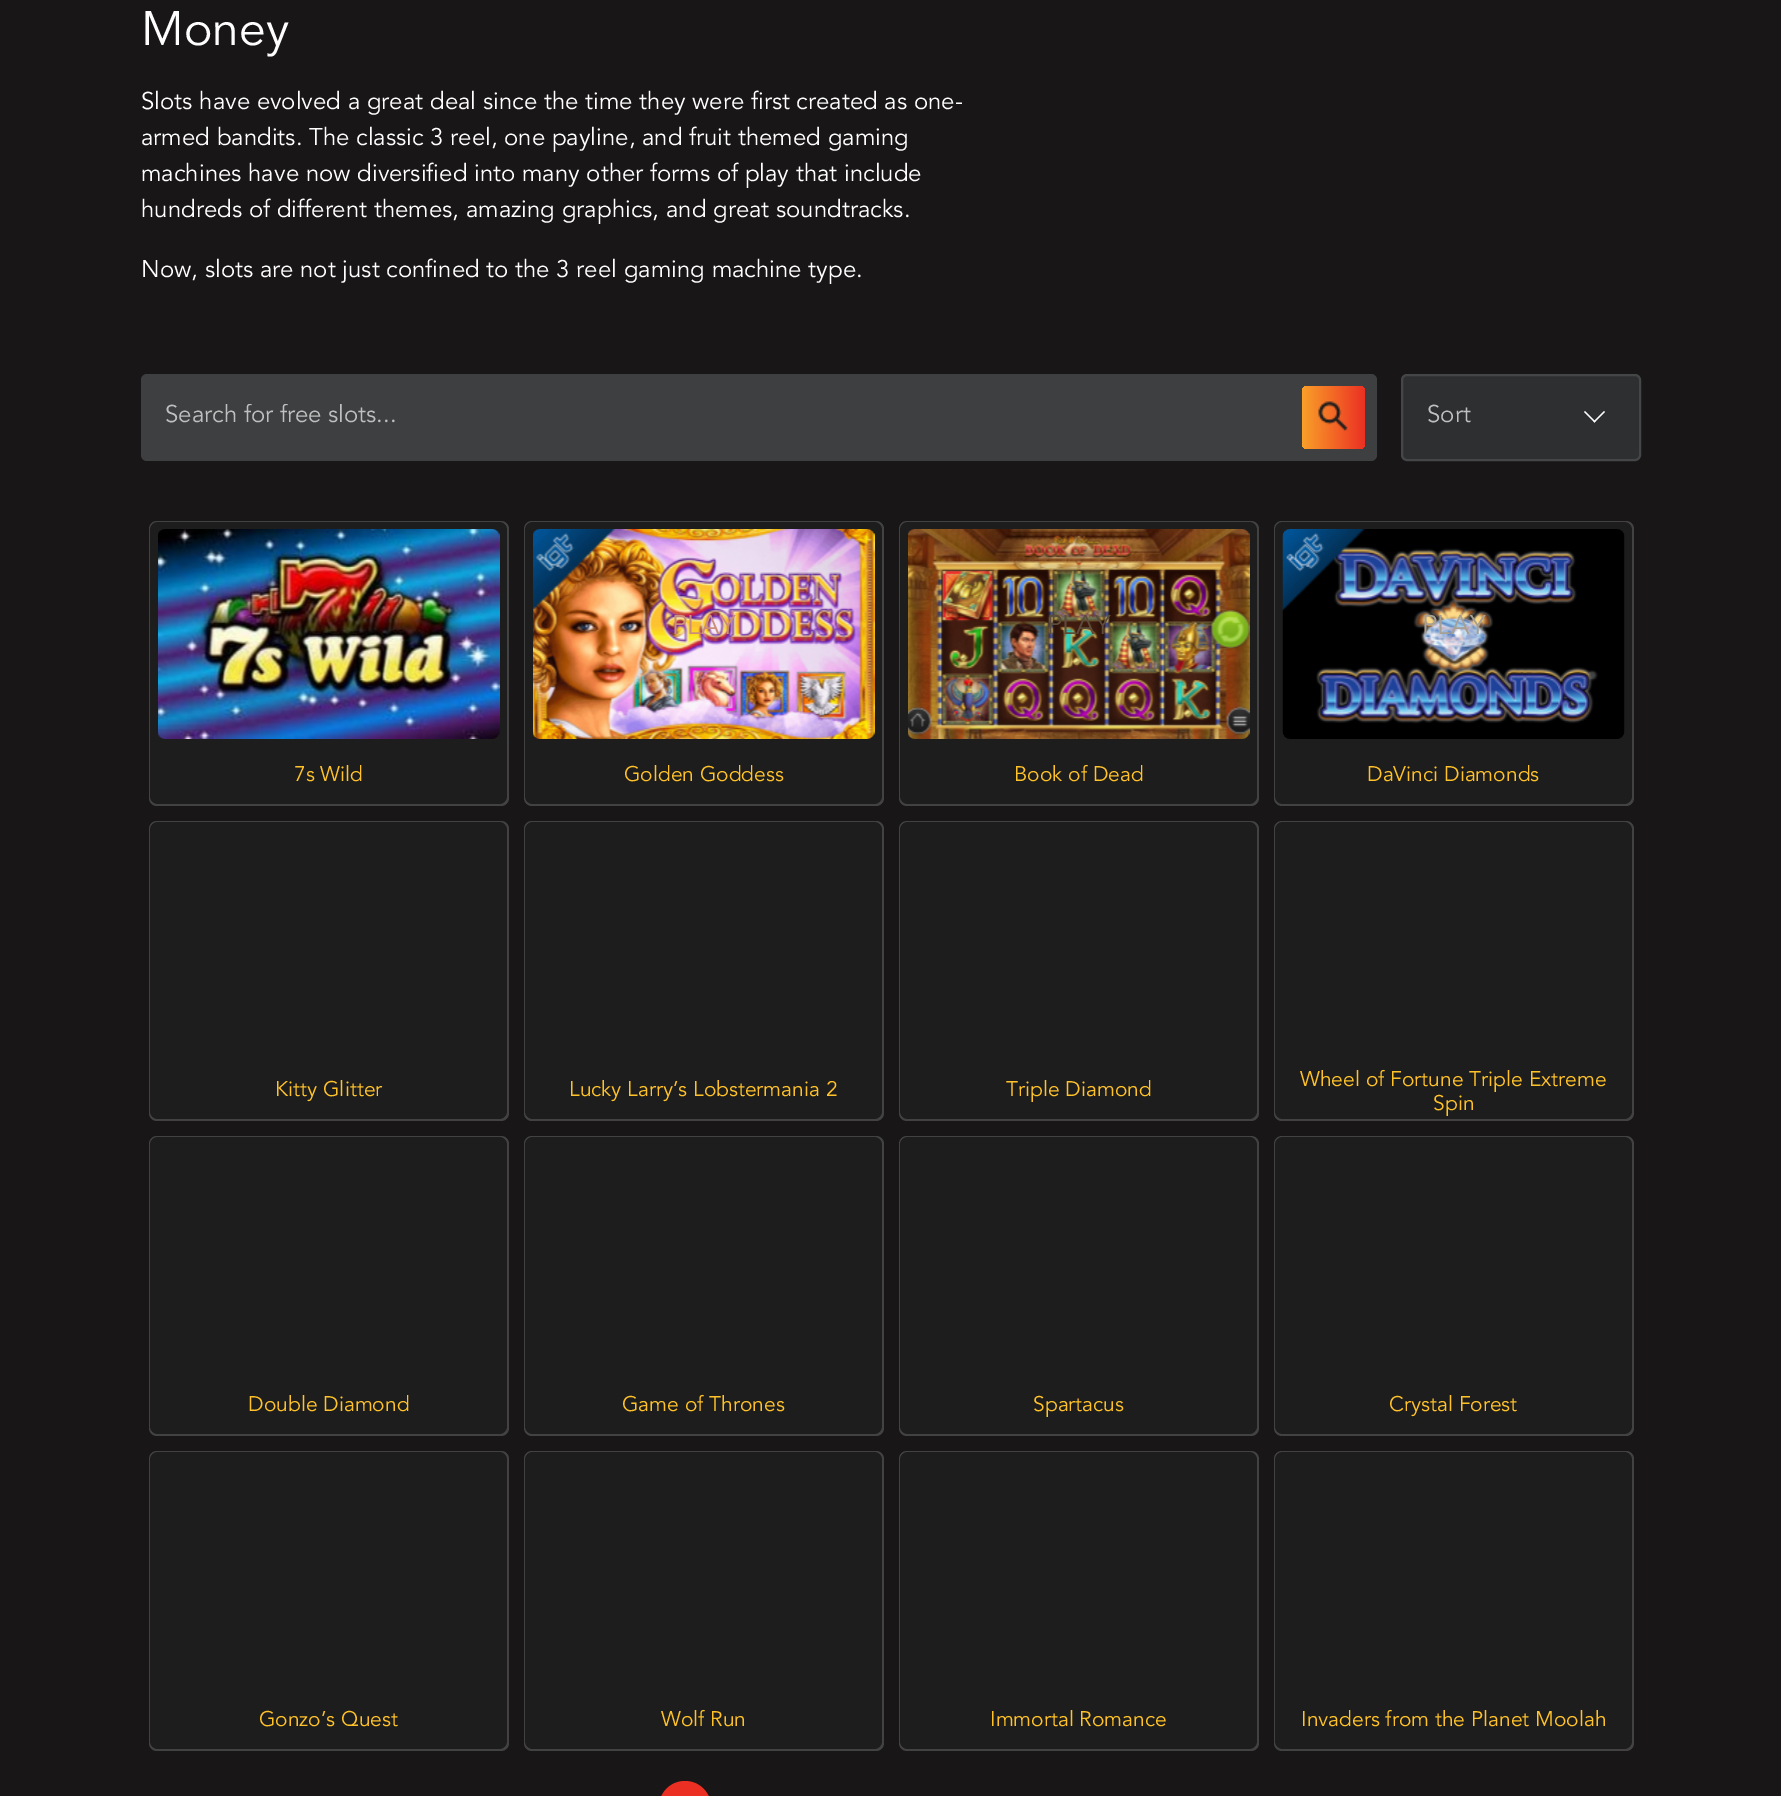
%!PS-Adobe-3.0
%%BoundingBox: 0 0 1781 1796
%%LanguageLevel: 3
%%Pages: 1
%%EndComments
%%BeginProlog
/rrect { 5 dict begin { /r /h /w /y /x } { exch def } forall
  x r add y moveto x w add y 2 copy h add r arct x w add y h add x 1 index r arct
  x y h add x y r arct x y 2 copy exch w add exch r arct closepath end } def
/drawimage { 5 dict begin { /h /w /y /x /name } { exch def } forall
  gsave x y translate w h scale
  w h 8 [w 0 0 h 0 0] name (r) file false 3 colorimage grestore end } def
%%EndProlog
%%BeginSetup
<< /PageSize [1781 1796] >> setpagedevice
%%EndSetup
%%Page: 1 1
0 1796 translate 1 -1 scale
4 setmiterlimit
0.094 0.086 0.086 setrgbcolor
0 0 1781 1796 rectfill
0.243 0.247 0.255 setrgbcolor
141 374 1236 87 6 rrect fill
gsave 1302 386 63 63 6 rrect clip newpath
<< /ShadingType 2 /ColorSpace /DeviceRGB /Coords [1302 417 1365 417] /Extend [true true] /Function << /FunctionType 3 /Domain [0 1] /Functions [<< /FunctionType 2 /Domain [0 1] /C0 [0.98 0.624 0.157] /C1 [0.98 0.624 0.157] /N 1 >> << /FunctionType 2 /Domain [0 1] /C0 [0.98 0.624 0.157] /C1 [0.922 0.192 0.137] /N 1 >> << /FunctionType 2 /Domain [0 1] /C0 [0.922 0.192 0.137] /C1 [0.922 0.192 0.137] /N 1 >>] /Bounds [0.01 0.99] /Encode [0 1 0 1 0 1] >> >> shfill grestore
(images/1.raw) 1318 401 30 31 drawimage
0.176 0.184 0.192 setrgbcolor
1402 375 238 85 5 rrect gsave fill grestore
0.267 0.275 0.278 setrgbcolor
2 setlinewidth
stroke
1 setgray
newpath 1604 411 moveto 1605 412 lineto 1594.5 422.5 lineto 1593.5 421.5 lineto closepath fill
newpath 1585 411 moveto 1595.5 421.5 lineto 1594.5 422.5 lineto 1584 412 lineto closepath fill
0.259 setgray
149 521 360 285 8 rrect fill
0.118 0.114 0.114 setrgbcolor
150 522 357 282 8 rrect fill
(images/2.raw) 158 529 342 210 drawimage
0.259 setgray
524 521 360 285 8 rrect fill
0.118 0.114 0.114 setrgbcolor
525 522 357 282 8 rrect fill
(images/3.raw) 533 529 342 210 drawimage
0.259 setgray
899 521 360 285 8 rrect fill
0.118 0.114 0.114 setrgbcolor
900 522 357 282 8 rrect fill
(images/4.raw) 908 529 342 210 drawimage
0.259 setgray
1274 521 360 285 8 rrect fill
0.118 0.114 0.114 setrgbcolor
1275 522 357 282 8 rrect fill
(images/5.raw) 1282 529 343 210 drawimage
0.259 setgray
149 821 360 300 8 rrect fill
0.118 0.114 0.114 setrgbcolor
150 822 357 297 8 rrect fill
0.259 setgray
524 821 360 300 8 rrect fill
0.118 0.114 0.114 setrgbcolor
525 822 357 297 8 rrect fill
0.259 setgray
899 821 360 300 8 rrect fill
0.118 0.114 0.114 setrgbcolor
900 822 357 297 8 rrect fill
0.259 setgray
1274 821 360 300 8 rrect fill
0.118 0.114 0.114 setrgbcolor
1275 822 357 297 8 rrect fill
0.259 setgray
149 1136 360 300 8 rrect fill
0.118 0.114 0.114 setrgbcolor
150 1137 357 297 8 rrect fill
0.259 setgray
524 1136 360 300 8 rrect fill
0.118 0.114 0.114 setrgbcolor
525 1137 357 297 8 rrect fill
0.259 setgray
899 1136 360 300 8 rrect fill
0.118 0.114 0.114 setrgbcolor
900 1137 357 297 8 rrect fill
0.259 setgray
1274 1136 360 300 8 rrect fill
0.118 0.114 0.114 setrgbcolor
1275 1137 357 297 8 rrect fill
0.259 setgray
149 1451 360 300 8 rrect fill
0.118 0.114 0.114 setrgbcolor
150 1452 357 297 8 rrect fill
0.259 setgray
524 1451 360 300 8 rrect fill
0.118 0.114 0.114 setrgbcolor
525 1452 357 297 8 rrect fill
0.259 setgray
899 1451 360 300 8 rrect fill
0.118 0.114 0.114 setrgbcolor
900 1452 357 297 8 rrect fill
0.259 setgray
1274 1451 360 300 8 rrect fill
0.118 0.114 0.114 setrgbcolor
1275 1452 357 297 8 rrect fill
0.922 0.188 0.137 setrgbcolor
659 1781 52 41 26 rrect fill
/Avenir-Regular [48 0 0 -48 0 0] selectfont
1 setgray
141 45 moveto (Money) show
/Avenir-Regular [24 0 0 -24 0 0] selectfont
141 109 moveto (Slots have evolved a great deal since the time they were first created as one-) show
141 145 moveto (armed bandits. The classic 3 reel, one payline, and fruit themed gaming) show
141 181 moveto (machines have now diversified into many other forms of play that include) show
141 217 moveto (hundreds of different themes, amazing graphics, and great soundtracks.) show
141 277 moveto (Now, slots are not just confined to the 3 reel gaming machine type.) show
gsave
165 404 1113 28 rectclip
0.749 setgray
165 422 moveto (Search for free slots...) show
grestore
0.749 setgray
1427 422 moveto (Sort) show
/Avenir-Regular [21 0 0 -21 0 0] selectfont
1 0.761 0.165 setrgbcolor
294 781 moveto (7s Wild) show
/Avenir-Regular [27 0 0 -27 0 0] selectfont
0.8 0.561 0.478 setrgbcolor
672 634 moveto (PLAY) show
/Avenir-Regular [21 0 0 -21 0 0] selectfont
1 0.761 0.165 setrgbcolor
624 781 moveto (Golden Goddess) show
/Avenir-Regular [27 0 0 -27 0 0] selectfont
0.357 0.302 0.224 setrgbcolor
1047 634 moveto (PLAY) show
/Avenir-Regular [21 0 0 -21 0 0] selectfont
1 0.761 0.165 setrgbcolor
1014 781 moveto (Book of Dead) show
/Avenir-Regular [27 0 0 -27 0 0] selectfont
0.655 0.627 0.58 setrgbcolor
1422 634 moveto (PLAY) show
/Avenir-Regular [21 0 0 -21 0 0] selectfont
1 0.761 0.165 setrgbcolor
1367 781 moveto (DaVinci Diamonds) show
275 1096 moveto (Kitty Glitter) show
569 1096 moveto (Lucky Larry’s Lobstermania 2) show
1006 1096 moveto (Triple Diamond) show
1300 1086 moveto (Wheel of Fortune Triple Extreme) show
1433 1110 moveto (Spin) show
248 1411 moveto (Double Diamond) show
622 1411 moveto (Game of Thrones) show
1033 1411 moveto (Spartacus) show
1389 1411 moveto (Crystal Forest) show
259 1726 moveto (Gonzo’s Quest) show
661 1726 moveto (Wolf Run) show
990 1726 moveto (Immortal Romance) show
1301 1726 moveto (Invaders from the Planet Moolah) show
showpage
%%EOF
